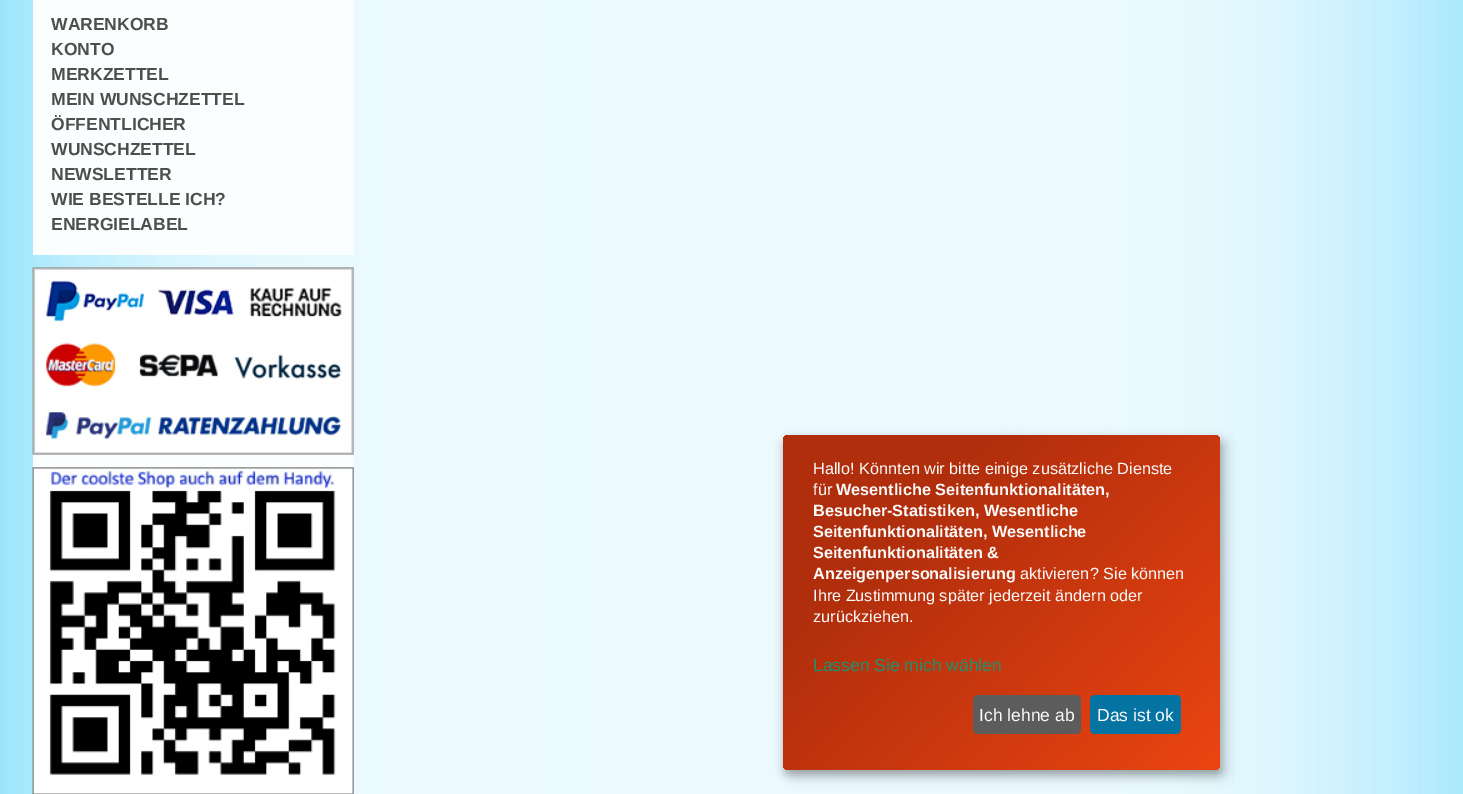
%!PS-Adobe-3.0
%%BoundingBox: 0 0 1463 794
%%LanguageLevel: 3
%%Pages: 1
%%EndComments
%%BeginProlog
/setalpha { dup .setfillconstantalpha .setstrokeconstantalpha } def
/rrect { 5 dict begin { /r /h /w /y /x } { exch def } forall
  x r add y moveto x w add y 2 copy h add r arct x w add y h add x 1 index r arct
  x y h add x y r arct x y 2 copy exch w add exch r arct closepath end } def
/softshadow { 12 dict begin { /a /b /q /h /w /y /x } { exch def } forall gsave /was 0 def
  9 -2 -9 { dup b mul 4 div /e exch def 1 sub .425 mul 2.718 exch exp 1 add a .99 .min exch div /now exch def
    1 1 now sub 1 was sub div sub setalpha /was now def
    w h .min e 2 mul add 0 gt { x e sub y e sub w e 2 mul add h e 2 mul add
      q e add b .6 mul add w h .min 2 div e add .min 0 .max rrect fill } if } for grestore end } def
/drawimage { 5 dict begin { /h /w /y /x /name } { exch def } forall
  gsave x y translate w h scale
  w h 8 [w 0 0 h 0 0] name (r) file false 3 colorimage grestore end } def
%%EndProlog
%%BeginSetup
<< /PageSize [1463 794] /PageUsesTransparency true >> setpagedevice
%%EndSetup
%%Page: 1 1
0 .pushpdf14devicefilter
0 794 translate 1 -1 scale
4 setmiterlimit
1 setgray
0 0 1463 794 rectfill
(images/1.raw) 0 0 1463 794 drawimage
0.98 0.996 1 setrgbcolor
33 0 321 255 rectfill
33 268 321 526 rectfill
(images/2.raw) 32 267 322 188 drawimage
(images/3.raw) 32 467 322 327 drawimage
0 setgray
789 441 437 335 5 6 0.19 softshadow
783 440 437 335 5 4 0.2 softshadow
gsave 783 435 437 335 5 rrect clip newpath
<< /ShadingType 2 /ColorSpace /DeviceRGB /Coords [1194 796 808 409] /Extend [true true] /Function << /FunctionType 3 /Domain [0 1] /Functions [<< /FunctionType 2 /Domain [0 1] /C0 [0.922 0.271 0.067] /C1 [0.69 0.18 0.047] /N 1 >> << /FunctionType 2 /Domain [0 1] /C0 [0.69 0.18 0.047] /C1 [0.69 0.18 0.047] /N 1 >>] /Bounds [0.74] /Encode [0 1 0 1] >> >> shfill grestore
0.361 setgray
973 695 108 39 5 rrect fill
0.024 0.455 0.639 setrgbcolor
1090 695 91 39 5 rrect fill
/LiberationSans-Bold [17.5 0 0 -17.5 0 0] selectfont
0.306 setgray
51 30 moveto (WARENKORB) show
51 55 moveto (KONTO) show
51 80 moveto (MERKZETTEL) show
51 105 moveto (MEIN WUNSCHZETTEL) show
51 130 moveto (ÖFFENTLICHER) show
51 155 moveto (WUNSCHZETTEL) show
51 180 moveto (NEWSLETTER) show
51 205 moveto (WIE BESTELLE ICH?) show
51 230 moveto (ENERGIELABEL) show
/LiberationSans-Regular [16.25 0 0 -16.25 0 0] selectfont
0.98 setgray
813 474 moveto (Hallo! Könnten wir bitte einige zusätzliche Dienste) show
813 495 moveto (für) show
/LiberationSans-Bold [16.25 0 0 -16.25 0 0] selectfont
836 495 moveto (Wesentliche Seitenfunktionalitäten,) show
813 516 moveto (Besucher-Statistiken, Wesentliche) show
813 537 moveto (Seitenfunktionalitäten, Wesentliche) show
813 558 moveto (Seitenfunktionalitäten &) show
813 579 moveto (Anzeigenpersonalisierung) show
/LiberationSans-Regular [16.25 0 0 -16.25 0 0] selectfont
1020 579 moveto (aktivieren? Sie können) show
813 601 moveto (Ihre Zustimmung später jederzeit ändern oder) show
813 622 moveto (zurückziehen.) show
/LiberationSans-Regular [17.5 0 0 -17.5 0 0] selectfont
0.102 0.576 0.435 setrgbcolor
813 671 moveto (Lassen Sie mich wählen) show
0.98 setgray
979 721 moveto (Ich lehne ab) show
1097 721 moveto (Das ist ok) show
.poppdf14devicefilter showpage
%%EOF
